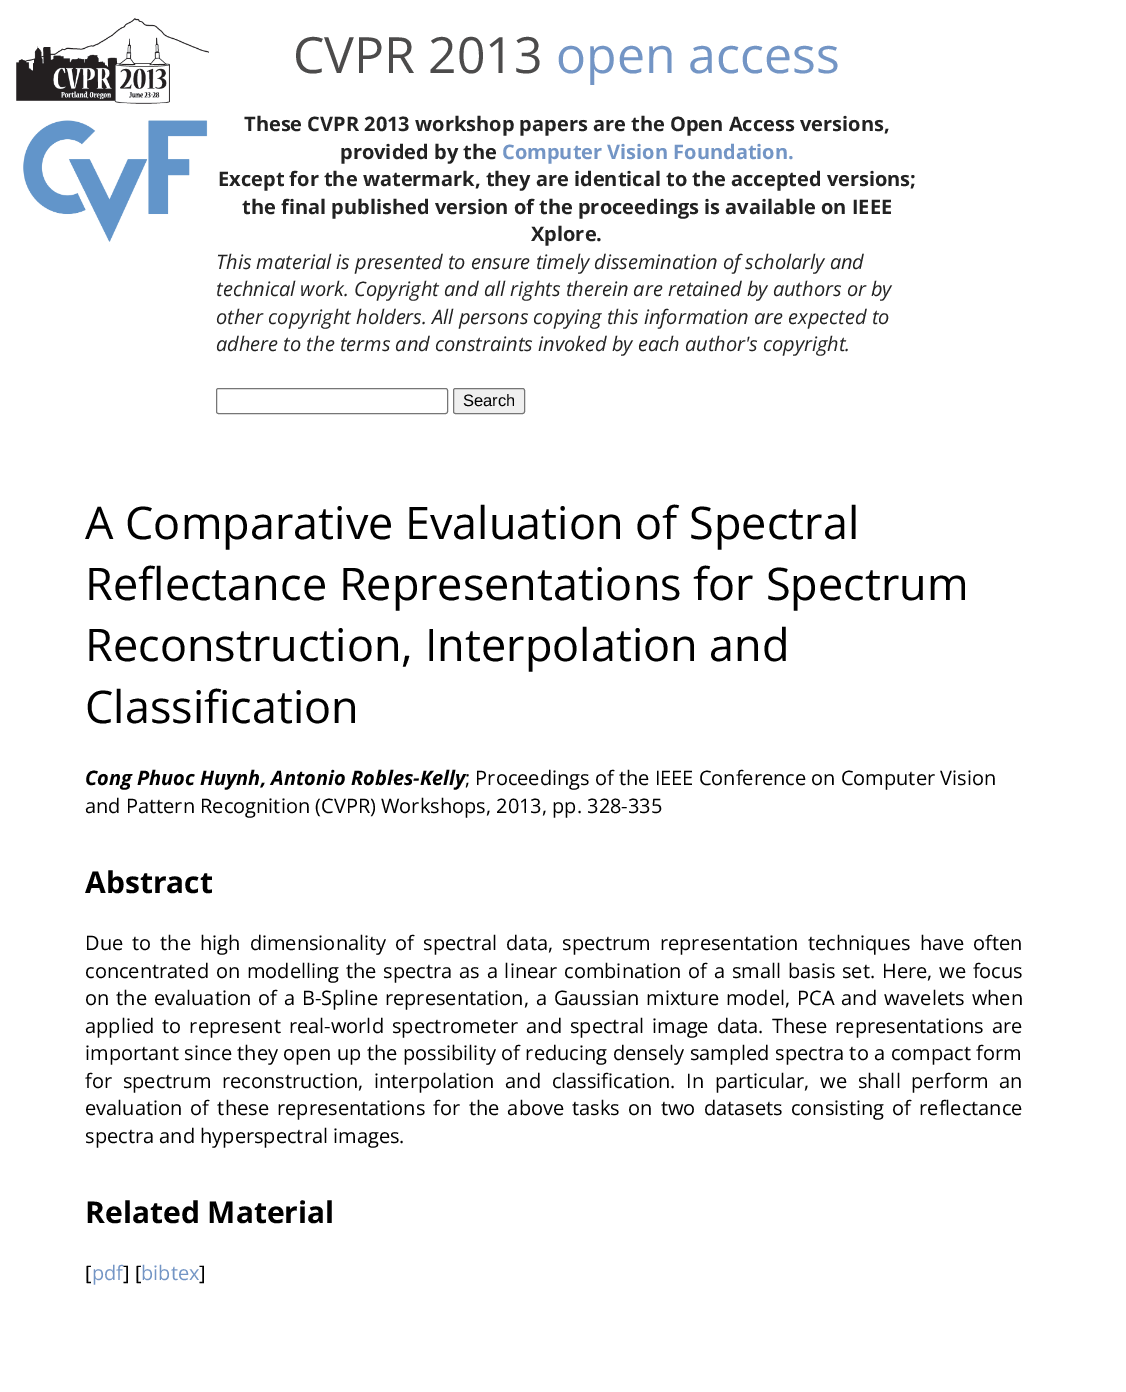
%!PS-Adobe-3.0
%%BoundingBox: 0 0 1126 1392
%%LanguageLevel: 3
%%Pages: 1
%%EndComments
%%BeginProlog
/rrect { 5 dict begin { /r /h /w /y /x } { exch def } forall
  x r add y moveto x w add y 2 copy h add r arct x w add y h add x 1 index r arct
  x y h add x y r arct x y 2 copy exch w add exch r arct closepath end } def
/drawimage { 5 dict begin { /h /w /y /x /name } { exch def } forall
  gsave x y translate w h scale
  w h 8 [w 0 0 h 0 0] name (r) file false 3 colorimage grestore end } def
%%EndProlog
%%BeginSetup
<< /PageSize [1126 1392] >> setpagedevice
%%EndSetup
%%Page: 1 1
0 1392 translate 1 -1 scale
4 setmiterlimit
1 setgray
0 0 1126 1392 rectfill
(images/1.raw) 16 17 193 87 drawimage
(images/2.raw) 23 120 185 122 drawimage
0.463 setgray
216.5 388.5 231 25 2 rrect stroke
0.937 setgray
453.5 388.5 71 25 2 rrect gsave fill grestore
0.463 setgray
stroke
/OpenSans-Regular [50 0 0 -50 0 0] selectfont
0.298 0.294 0.294 setrgbcolor
293 73 moveto (CVPR 2013) show
0.451 0.584 0.773 setrgbcolor
556 73 moveto (open access) show
/OpenSans-Bold [20 0 0 -20 0 0] selectfont
0.133 setgray
244 131 moveto (These CVPR 2013 workshop papers are the Open Access versions,) show
340 159 moveto (provided by the) show
0.451 0.584 0.773 setrgbcolor
502 159 moveto (Computer Vision Foundation.) show
0.133 setgray
218 186 moveto (Except for the watermark, they are identical to the accepted versions;) show
242 214 moveto (the final published version of the proceedings is available on IEEE) show
531 241 moveto (Xplore.) show
/OpenSans-Italic [20 0 0 -20 0 0] selectfont
216 269 moveto (This material is presented to ensure timely dissemination of scholarly and) show
216 296 moveto (technical work. Copyright and all rights therein are retained by authors or by) show
216 324 moveto (other copyright holders. All persons copying this information are expected to) show
216 351 moveto (adhere to the terms and constraints invoked by each author's copyright.) show
/LiberationSans-Regular [16.5 0 0 -16.5 0 0] selectfont
0 setgray
463 406 moveto (Search) show
/OpenSans-Regular [45 0 0 -45 0 0] selectfont
85 539 moveto (A Comparative Evaluation of Spectral) show
85 600 moveto (Reflectance Representations for Spectrum) show
85 661 moveto (Reconstruction, Interpolation and) show
85 723 moveto (Classification) show
/OpenSans-BoldItalic [20 0 0 -20 0 0] selectfont
85 785 moveto (Cong Phuoc Huynh, Antonio Robles-Kelly) show
/OpenSans-Regular [20 0 0 -20 0 0] selectfont
465 785 moveto (; Proceedings of the IEEE Conference on Computer Vision) show
85 813 moveto (and Pattern Recognition \(CVPR\) Workshops, 2013, pp. 328-335) show
/OpenSans-Bold [30 0 0 -30 0 0] selectfont
85 893 moveto (Abstract) show
/OpenSans-Regular [20 0 0 -20 0 0] selectfont
85 950 moveto 3.9 0 32 (Due to the high dimensionality of spectral data, spectrum representation techniques have often) widthshow
85 978 moveto 1.6 0 32 (concentrated on modelling the spectra as a linear combination of a small basis set. Here, we focus) widthshow
85 1005 moveto 1.75 0 32 (on the evaluation of a B-Spline representation, a Gaussian mixture model, PCA and wavelets when) widthshow
85 1033 moveto 2.9 0 32 (applied to represent real-world spectrometer and spectral image data. These representations are) widthshow
85 1060 moveto 0.3 0 32 (important since they open up the possibility of reducing densely sampled spectra to a compact form) widthshow
85 1088 moveto 5.4 0 32 (for spectrum reconstruction, interpolation and classification. In particular, we shall perform an) widthshow
85 1115 moveto 3 0 32 (evaluation of these representations for the above tasks on two datasets consisting of reflectance) widthshow
85 1143 moveto (spectra and hyperspectral images.) show
/OpenSans-Bold [30 0 0 -30 0 0] selectfont
85 1223 moveto (Related Material) show
/OpenSans-Regular [20 0 0 -20 0 0] selectfont
85 1280 moveto ([) show
0.451 0.584 0.773 setrgbcolor
92 1280 moveto (pdf) show
0 setgray
123 1280 moveto (] [) show
0.451 0.584 0.773 setrgbcolor
141 1280 moveto (bibtex) show
0 setgray
199 1280 moveto (]) show
showpage
%%EOF
